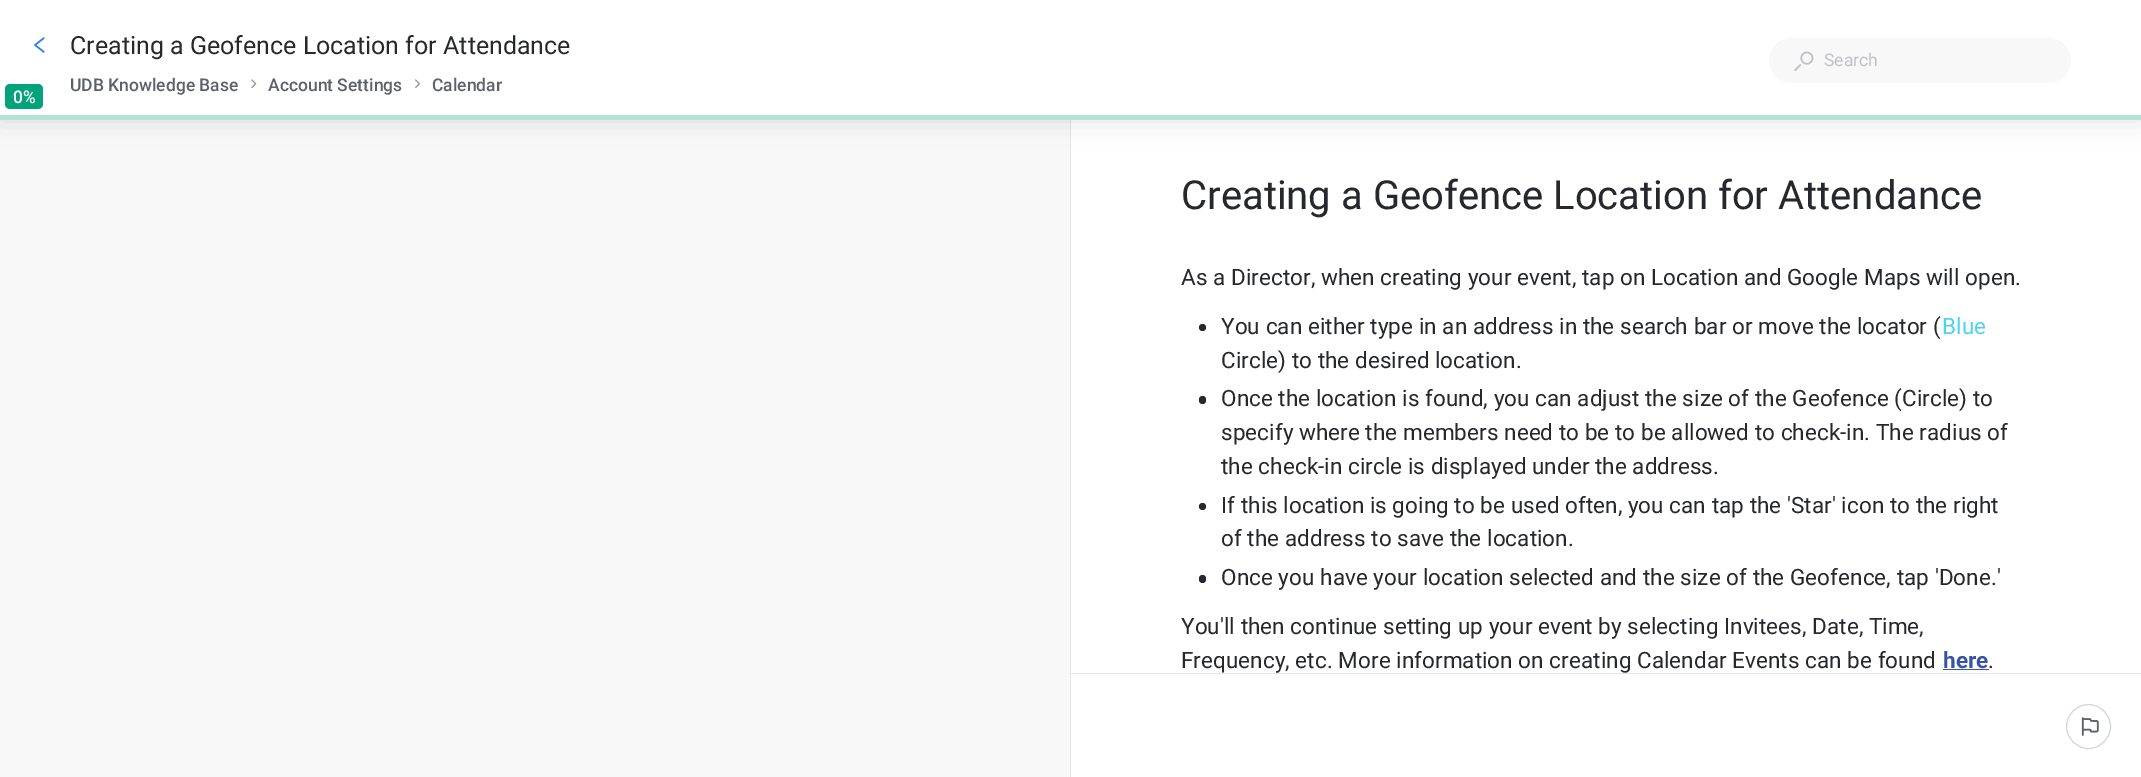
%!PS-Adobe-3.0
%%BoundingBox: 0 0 2141 777
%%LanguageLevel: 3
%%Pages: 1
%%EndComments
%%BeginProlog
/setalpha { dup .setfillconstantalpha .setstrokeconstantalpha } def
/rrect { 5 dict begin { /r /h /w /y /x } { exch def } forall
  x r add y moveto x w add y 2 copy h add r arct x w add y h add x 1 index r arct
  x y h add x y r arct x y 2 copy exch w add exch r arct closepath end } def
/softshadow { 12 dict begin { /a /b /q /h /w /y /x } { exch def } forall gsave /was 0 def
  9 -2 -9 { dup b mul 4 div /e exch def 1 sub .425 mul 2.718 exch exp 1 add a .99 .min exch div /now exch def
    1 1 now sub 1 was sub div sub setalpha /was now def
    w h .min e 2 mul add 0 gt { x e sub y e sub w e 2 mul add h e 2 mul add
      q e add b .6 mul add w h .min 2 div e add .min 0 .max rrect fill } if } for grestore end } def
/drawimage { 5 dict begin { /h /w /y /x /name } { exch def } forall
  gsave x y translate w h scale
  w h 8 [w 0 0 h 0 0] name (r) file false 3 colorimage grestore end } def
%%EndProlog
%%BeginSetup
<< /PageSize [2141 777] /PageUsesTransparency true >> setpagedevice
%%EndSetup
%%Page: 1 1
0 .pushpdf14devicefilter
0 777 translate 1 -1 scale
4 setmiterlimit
1 setgray
0 0 2141 777 rectfill
0.89 0.898 0.914 setrgbcolor
1070 120 1 657 rectfill
0.973 0.973 0.976 setrgbcolor
0 120 1070 657 rectfill
0 setgray
0 0 2141 120 0 12.5 0.12 softshadow
1 setgray
0 0 2141 115 rectfill
(images/1.raw) 34 37 11 16 drawimage
(images/2.raw) 251 79 6 9 drawimage
(images/3.raw) 415 79 5 9 drawimage
0.973 0.973 0.976 setrgbcolor
1769 38 302 45 22.5 rrect fill
(images/4.raw) 1794 51 20 20 drawimage
0 0.639 0.478 setrgbcolor
5 84 38 25 5 rrect fill
0.702 0.89 0.843 setrgbcolor
0 115 2141 5 rectfill
0.149 0.157 0.18 setrgbcolor
newpath 1202.5 327.5 3.5 0 360 arc closepath fill
1199 396 7 8 3.5 rrect fill
newpath 1202.5 506.5 3.5 0 360 arc closepath fill
1199 575 7 8 3.5 rrect fill
0.22 0.329 0.655 setrgbcolor
1943 669 46 1 rectfill
0.89 0.898 0.914 setrgbcolor
1071 673 1070 1 rectfill
0.827 0.835 0.855 setrgbcolor
newpath 2088.5 726.5 22 0 360 arc closepath stroke
(images/5.raw) 2081 717 18 19 drawimage
/Roboto-Regular [25 0 0 -25 0 0] selectfont
0.149 0.157 0.18 setrgbcolor
70 54 moveto (Creating a Geofence Location for Attendance) show
/Roboto-Medium [17.5 0 0 -17.5 0 0] selectfont
0.365 0.38 0.412 setrgbcolor
70 91 moveto (UDB Knowledge Base) show
268 91 moveto (Account Settings) show
432 91 moveto (Calendar) show
/Roboto-Regular [17.5 0 0 -17.5 0 0] selectfont
0.749 0.757 0.776 setrgbcolor
1824 66 moveto (Search) show
/Roboto-Medium [17.5 0 0 -17.5 0 0] selectfont
1 setgray
13 103 moveto (0%) show
/Roboto-Regular [40 0 0 -40 0 0] selectfont
0.149 0.157 0.18 setrgbcolor
1181 209 moveto (Creating a Geofence Location for Attendance) show
/Roboto-Regular [22.5 0 0 -22.5 0 0] selectfont
1181 285 moveto 0.05 0 (As a Director, when creating your event, tap on Location and Google Maps will open.) ashow
1221 334 moveto 0.05 0 (You can either type in an address in the search bar or move the locator \() ashow
0.302 0.824 0.937 setrgbcolor
1942 334 moveto 0.05 0 (Blue) ashow
0.149 0.157 0.18 setrgbcolor
1221 368 moveto 0.05 0 (Circle\) to the desired location.) ashow
1221 406 moveto 0.05 0 (Once the location is found, you can adjust the size of the Geofence \(Circle\) to) ashow
1221 440 moveto 0.05 0 (specify where the members need to be to be allowed to check-in. The radius of) ashow
1221 474 moveto 0.05 0 (the check-in circle is displayed under the address.) ashow
1221 513 moveto 0.05 0 (If this location is going to be used often, you can tap the 'Star' icon to the right) ashow
1221 546 moveto 0.05 0 (of the address to save the location.) ashow
1221 585 moveto 0.05 0 (Once you have your location selected and the size of the Geofence, tap 'Done.') ashow
1181 634 moveto 0.05 0 (You'll then continue setting up your event by selecting Invitees, Date, Time,) ashow
1181 668 moveto 0.05 0 (Frequency, etc. More information on creating Calendar Events can be found) ashow
/Roboto-Bold [22.5 0 0 -22.5 0 0] selectfont
0.22 0.329 0.655 setrgbcolor
1943 668 moveto 0.05 0 (here) ashow
/Roboto-Regular [22.5 0 0 -22.5 0 0] selectfont
0.149 0.157 0.18 setrgbcolor
1988 668 moveto 0.05 0 (.) ashow
.poppdf14devicefilter showpage
%%EOF
